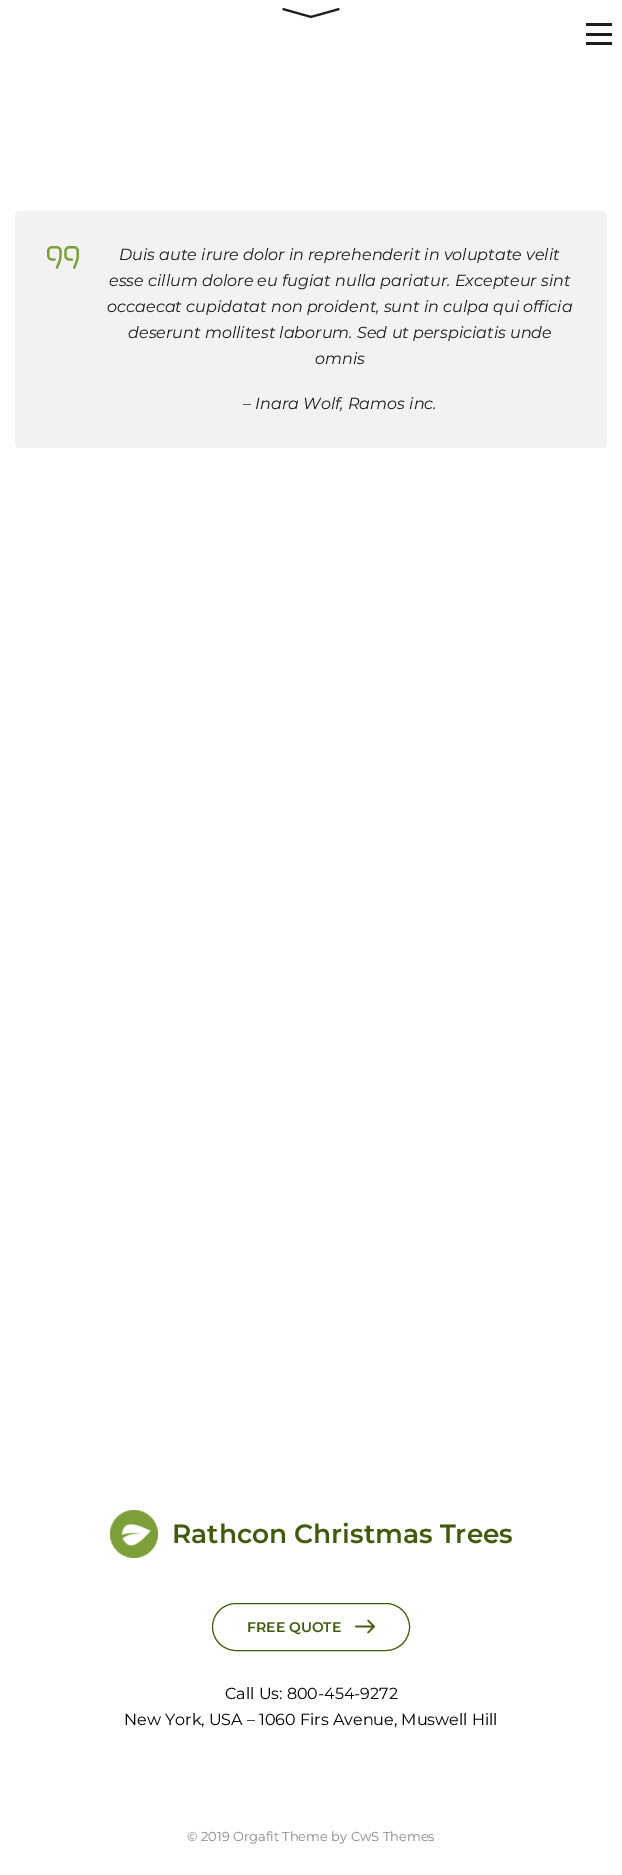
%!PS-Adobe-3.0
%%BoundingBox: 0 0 622 1875
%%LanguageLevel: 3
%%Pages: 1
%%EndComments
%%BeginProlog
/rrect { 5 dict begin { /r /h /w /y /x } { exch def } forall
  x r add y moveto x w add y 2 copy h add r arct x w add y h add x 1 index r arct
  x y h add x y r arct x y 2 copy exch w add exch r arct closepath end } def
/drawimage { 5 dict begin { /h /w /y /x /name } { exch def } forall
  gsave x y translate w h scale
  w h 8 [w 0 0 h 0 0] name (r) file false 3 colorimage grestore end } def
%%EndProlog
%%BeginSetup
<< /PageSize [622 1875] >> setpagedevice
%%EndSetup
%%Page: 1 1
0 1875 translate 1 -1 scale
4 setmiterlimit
1 setgray
0 0 622 1875 rectfill
0.114 setgray
newpath 283 8 moveto 311.5 16 lineto 311 18 lineto 282.5 10 lineto closepath fill
newpath 310.5 16 moveto 339 8 lineto 339.5 10 lineto 311 18 lineto closepath fill
586 23 26 3 rectfill
586 33 26 3 rectfill
586 42 26 3 rectfill
0.949 setgray
15 211 592 237 5 rrect fill
(images/1.raw) 47 246 32 23 drawimage
(images/2.raw) 110 1510 48 48 drawimage
0.251 0.357 0.043 setrgbcolor
212.5 1603.5 197 47 23.5 rrect stroke
(images/3.raw) 355 1619 20 15 drawimage
/Montserrat-Italic [16 0 0 -16 0 0] selectfont
0.114 setgray
119 260 moveto (Duis aute irure dolor in reprehenderit in voluptate velit) show
109 286 moveto (esse cillum dolore eu fugiat nulla pariatur. Excepteur sint) show
107 312 moveto (occaecat cupidatat non proident, sunt in culpa qui officia) show
128 338 moveto (deserunt mollitest laborum. Sed ut perspiciatis unde) show
315 364 moveto (omnis) show
243 409 moveto (– Inara Wolf, Ramos inc.) show
/Montserrat-SemiBold [26.4 0 0 -26.4 0 0] selectfont
0.251 0.357 0.043 setrgbcolor
172 1543 moveto (Rathcon Christmas Trees) show
/Montserrat-SemiBold [14 0 0 -14 0 0] selectfont
247 1632 moveto (FREE QUOTE) show
/Montserrat-Regular [16 0 0 -16 0 0] selectfont
0 setgray
225 1699 moveto (Call Us: 800-454-9272) show
124 1725 moveto (New York, USA – 1060 Firs Avenue, Muswell Hill) show
/Montserrat-Regular [13 0 0 -13 0 0] selectfont
0.518 setgray
187 1841 moveto (© 2019 Orgafit Theme by CwS Themes) show
showpage
%%EOF
